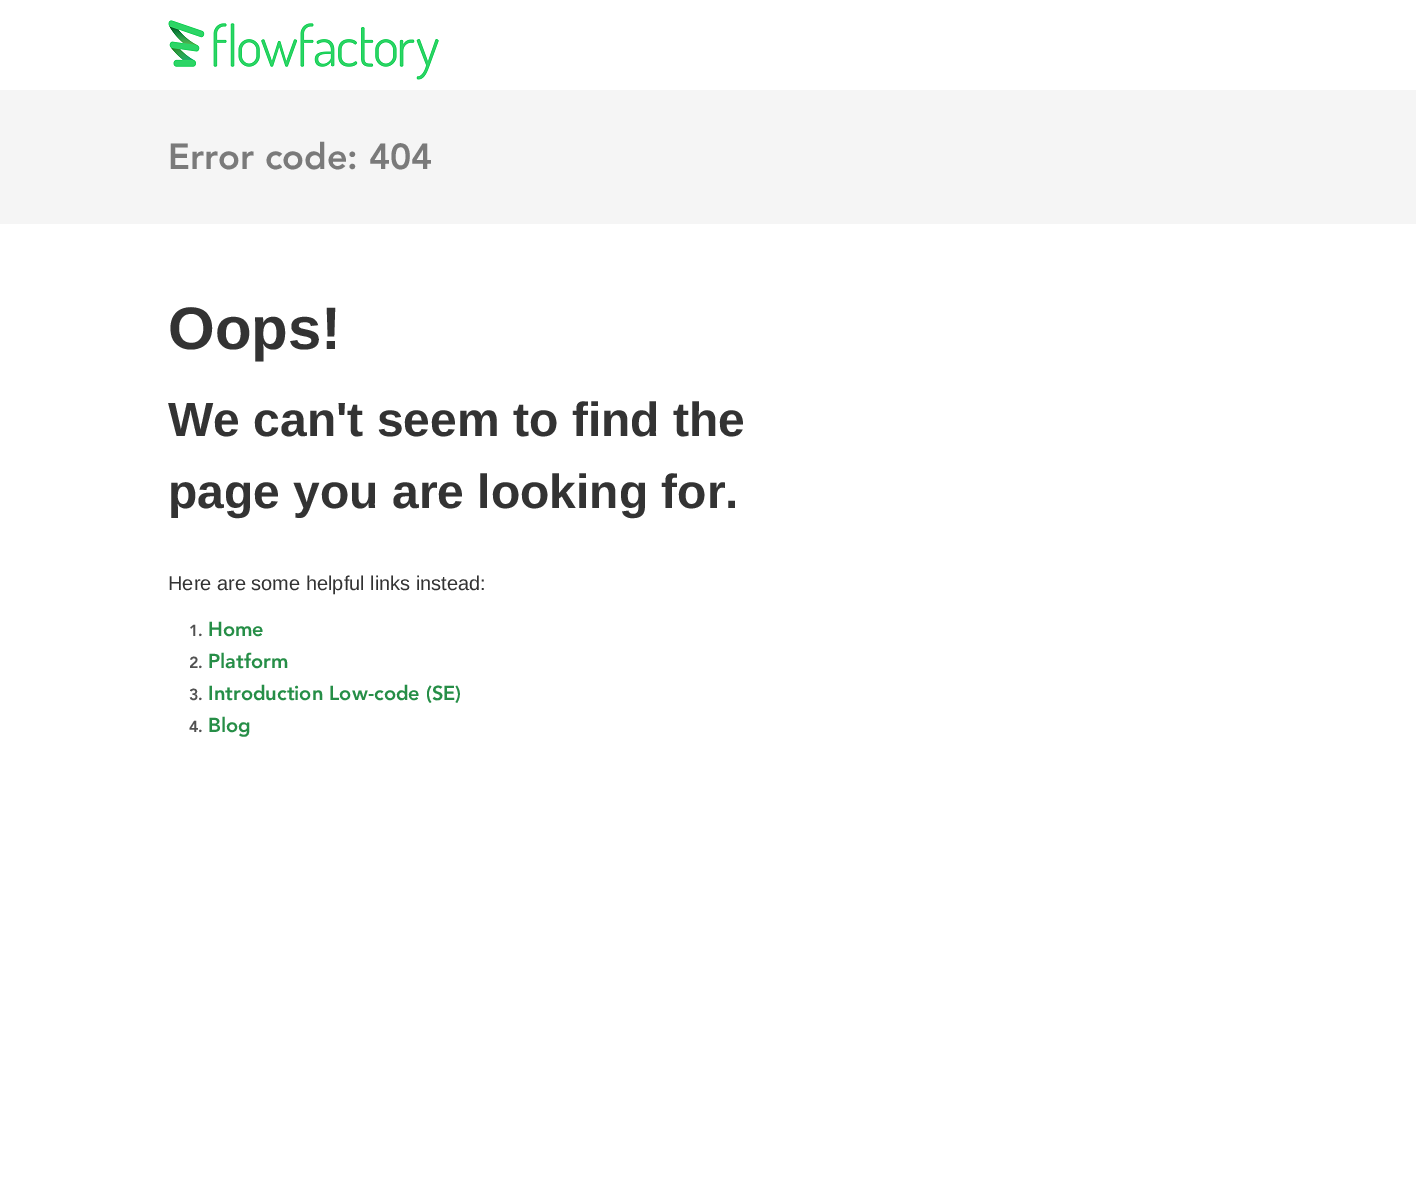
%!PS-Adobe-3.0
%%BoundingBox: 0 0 1416 1199
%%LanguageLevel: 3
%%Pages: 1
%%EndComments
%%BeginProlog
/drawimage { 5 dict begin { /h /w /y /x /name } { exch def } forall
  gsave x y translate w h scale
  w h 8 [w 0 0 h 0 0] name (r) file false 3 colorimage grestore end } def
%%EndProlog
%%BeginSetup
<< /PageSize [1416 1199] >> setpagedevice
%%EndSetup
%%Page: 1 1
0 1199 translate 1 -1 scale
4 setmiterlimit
1 setgray
0 0 1416 1199 rectfill
(images/1.raw) 168 20 271 60 drawimage
0.961 setgray
0 90 1416 134 rectfill
/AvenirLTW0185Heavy-Black [36 0 0 -36 0 0] selectfont
0.478 setgray
168 169 moveto (Error code: 404) show
/LiberationSans-Bold [60 0 0 -60 0 0] selectfont
0.2 setgray
168 349 moveto (Oops!) show
/LiberationSans-Bold [48 0 0 -48 0 0] selectfont
168 436 moveto (We can't seem to find the) show
168 508 moveto (page you are looking for.) show
/LiberationSans-Regular [20 0 0 -20 0 0] selectfont
168 590 moveto (Here are some helpful links instead:) show
/AvenirLTW0185Heavy-Black [16 0 0 -16 0 0] selectfont
0.318 setgray
189 636 moveto (1.) show
/AvenirLTW0185Heavy-Black [20 0 0 -20 0 0] selectfont
0.149 0.557 0.278 setrgbcolor
208 636 moveto (Home) show
/AvenirLTW0185Heavy-Black [16 0 0 -16 0 0] selectfont
0.318 setgray
189 668 moveto (2.) show
/AvenirLTW0185Heavy-Black [20 0 0 -20 0 0] selectfont
0.149 0.557 0.278 setrgbcolor
208 668 moveto (Platform) show
/AvenirLTW0185Heavy-Black [16 0 0 -16 0 0] selectfont
0.318 setgray
189 700 moveto (3.) show
/AvenirLTW0185Heavy-Black [20 0 0 -20 0 0] selectfont
0.149 0.557 0.278 setrgbcolor
208 700 moveto (Introduction Low-code \(SE\)) show
/AvenirLTW0185Heavy-Black [16 0 0 -16 0 0] selectfont
0.318 setgray
189 732 moveto (4.) show
/AvenirLTW0185Heavy-Black [20 0 0 -20 0 0] selectfont
0.149 0.557 0.278 setrgbcolor
208 732 moveto (Blog) show
showpage
%%EOF
